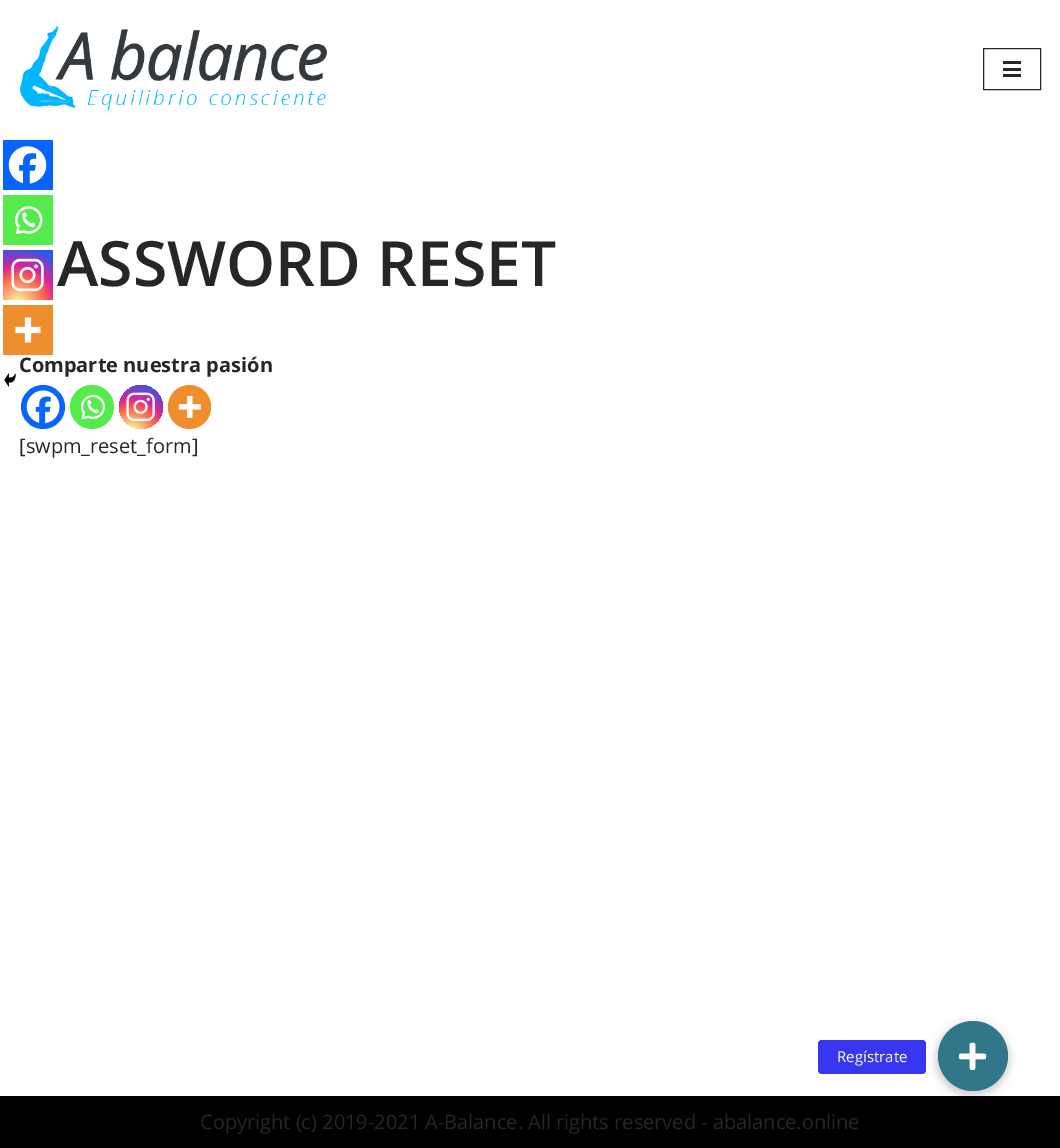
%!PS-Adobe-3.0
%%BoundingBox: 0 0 1060 1148
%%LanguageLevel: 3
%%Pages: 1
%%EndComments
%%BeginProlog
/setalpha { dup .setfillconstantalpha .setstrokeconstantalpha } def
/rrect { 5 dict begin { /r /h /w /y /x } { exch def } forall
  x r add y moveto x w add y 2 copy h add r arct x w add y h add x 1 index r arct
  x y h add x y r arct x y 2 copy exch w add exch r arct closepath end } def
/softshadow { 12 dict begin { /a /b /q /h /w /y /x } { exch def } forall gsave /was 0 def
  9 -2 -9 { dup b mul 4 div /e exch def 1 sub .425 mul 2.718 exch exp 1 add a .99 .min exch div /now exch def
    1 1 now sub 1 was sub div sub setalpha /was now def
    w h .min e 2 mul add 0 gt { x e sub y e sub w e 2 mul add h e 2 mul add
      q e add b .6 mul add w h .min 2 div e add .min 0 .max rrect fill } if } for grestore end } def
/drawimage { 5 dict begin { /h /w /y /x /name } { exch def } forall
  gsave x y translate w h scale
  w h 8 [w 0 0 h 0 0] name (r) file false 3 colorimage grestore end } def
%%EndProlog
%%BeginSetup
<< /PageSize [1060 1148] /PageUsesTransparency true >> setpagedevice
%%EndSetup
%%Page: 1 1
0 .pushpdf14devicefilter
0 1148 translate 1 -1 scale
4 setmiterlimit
1 setgray
0 0 1060 1148 rectfill
(images/1.raw) 20 26 307 85 drawimage
0.153 0.149 0.149 setrgbcolor
983.5 48.5 57 41 rectstroke
1003 61 18 3 rectfill
1003 68 18 3 rectfill
1003 74 18 3 rectfill
0.027 0.396 0.996 setrgbcolor
3 140 50 50 rectfill
(images/2.raw) 8 146 39 38 drawimage
0.333 0.922 0.298 setrgbcolor
3 195 50 50 rectfill
(images/3.raw) 15 206 28 28 drawimage
gsave newpath 3 250 moveto 53 250 lineto 53 300 lineto 3 300 lineto closepath clip newpath 18 304 translate 64 64 scale
<< /ShadingType 3 /ColorSpace /DeviceRGB /Coords [0 0 0 0 0 1] /Extend [true true] /Function << /FunctionType 3 /Domain [0 1] /Functions [<< /FunctionType 2 /Domain [0 1] /C0 [0.992 0.957 0.592] /C1 [0.992 0.957 0.592] /N 1 >> << /FunctionType 2 /Domain [0 1] /C0 [0.992 0.957 0.592] /C1 [0.992 0.349 0.286] /N 1 >> << /FunctionType 2 /Domain [0 1] /C0 [0.992 0.349 0.286] /C1 [0.839 0.141 0.624] /N 1 >> << /FunctionType 2 /Domain [0 1] /C0 [0.839 0.141 0.624] /C1 [0.157 0.353 0.922] /N 1 >> << /FunctionType 2 /Domain [0 1] /C0 [0.157 0.353 0.922] /C1 [0.157 0.353 0.922] /N 1 >>] /Bounds [0.05 0.45 0.6 0.9] /Encode [0 1 0 1 0 1 0 1 0 1] >> >> shfill grestore
(images/4.raw) 11 258 33 34 drawimage
0.933 0.557 0.176 setrgbcolor
3 305 50 50 rectfill
(images/5.raw) 15 317 26 26 drawimage
(images/6.raw) 4 373 12 14 drawimage
0.027 0.396 0.996 setrgbcolor
newpath 43 407 22 0 360 arc closepath fill
(images/7.raw) 26 390 34 34 drawimage
0.333 0.922 0.298 setrgbcolor
newpath 92 407 22 0 360 arc closepath fill
(images/8.raw) 80 394 25 26 drawimage
gsave newpath 141 407 22 0 360 arc closepath clip newpath 132 432 translate 56 56 scale
<< /ShadingType 3 /ColorSpace /DeviceRGB /Coords [0 0 0 0 0 1] /Extend [true true] /Function << /FunctionType 3 /Domain [0 1] /Functions [<< /FunctionType 2 /Domain [0 1] /C0 [0.992 0.957 0.592] /C1 [0.992 0.957 0.592] /N 1 >> << /FunctionType 2 /Domain [0 1] /C0 [0.992 0.957 0.592] /C1 [0.992 0.349 0.286] /N 1 >> << /FunctionType 2 /Domain [0 1] /C0 [0.992 0.349 0.286] /C1 [0.839 0.141 0.624] /N 1 >> << /FunctionType 2 /Domain [0 1] /C0 [0.839 0.141 0.624] /C1 [0.157 0.353 0.922] /N 1 >> << /FunctionType 2 /Domain [0 1] /C0 [0.157 0.353 0.922] /C1 [0.157 0.353 0.922] /N 1 >>] /Bounds [0.05 0.45 0.6 0.9] /Encode [0 1 0 1 0 1 0 1 0 1] >> >> shfill grestore
(images/9.raw) 126 392 29 30 drawimage
0.933 0.557 0.176 setrgbcolor
168 385 43 44 21.5 rrect fill
(images/10.raw) 178 395 23 23 drawimage
0 setgray
0 1096 1060 52 rectfill
936 1023 73 72 36 4 0.2 softshadow
0.184 0.467 0.537 setrgbcolor
newpath 973 1056 35 0 360 arc closepath fill
0.216 0.216 0.945 setrgbcolor
818 1040 108 34 4 rrect fill
(images/11.raw) 958 1042 29 29 drawimage
/OpenSans-SemiBold [62.5 0 0 -62.5 0 0] selectfont
0.153 0.149 0.149 setrgbcolor
57 286 moveto (ASSWORD RESET) show
/OpenSans-Bold [20 0 0 -20 0 0] selectfont
19 372 moveto (Comparte nuestra pasión) show
/OpenSans-Regular [20 0 0 -20 0 0] selectfont
19 453 moveto ([swpm_reset_form]) show
200 1129 moveto (Copyright \(c\) 2019-2021 A-Balance. All rights reserved - abalance.online) show
/OpenSans-Regular [15 0 0 -15 0 0] selectfont
1 setgray
837 1062 moveto (Regístrate) show
.poppdf14devicefilter showpage
%%EOF
